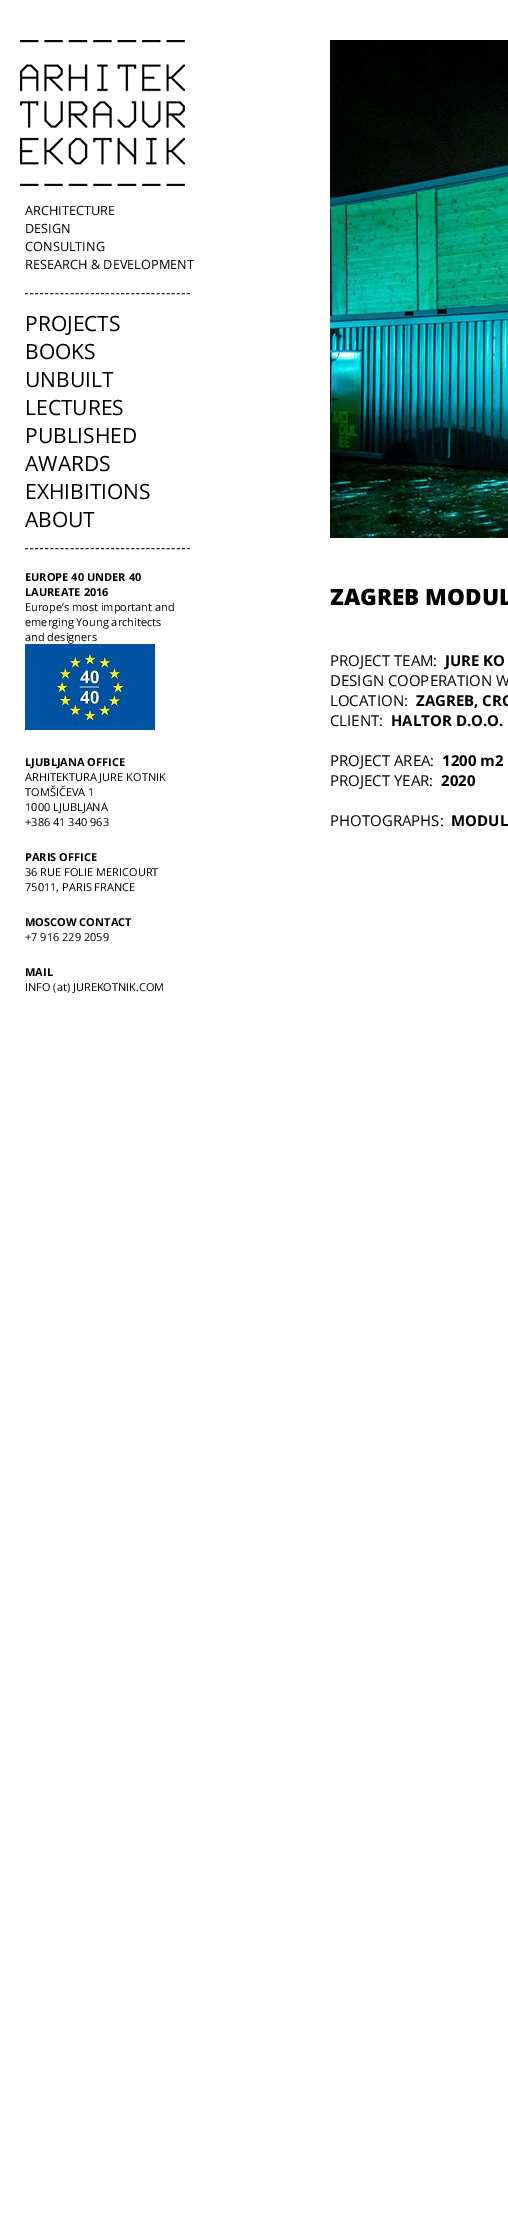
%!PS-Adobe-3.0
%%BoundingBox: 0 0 508 2220
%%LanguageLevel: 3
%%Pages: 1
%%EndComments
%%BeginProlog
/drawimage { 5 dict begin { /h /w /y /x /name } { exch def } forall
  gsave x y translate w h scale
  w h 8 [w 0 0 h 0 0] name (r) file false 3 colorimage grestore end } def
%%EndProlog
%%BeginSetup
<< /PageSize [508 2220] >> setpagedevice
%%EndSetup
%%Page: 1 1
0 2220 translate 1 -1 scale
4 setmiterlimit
1 setgray
0 0 508 2220 rectfill
(images/1.raw) 20 40 165 146 drawimage
0.149 setgray
[3 2.06] 0 setdash
newpath 25 293.5 moveto 190 293.5 lineto stroke
newpath 25 548.5 moveto 190 548.5 lineto stroke
(images/2.raw) 25 644 130 86 drawimage
(images/3.raw) 330 40 178 498 drawimage
/OpenSans-Regular [12.75 0 0 -12.75 0 0] selectfont
0 setgray
25 215 moveto (ARCHITECTURE) show
25 233 moveto (DESIGN) show
25 251 moveto (CONSULTING) show
25 269 moveto (RESEARCH & DEVELOPMENT) show
/OpenSans-Regular [21 0 0 -21 0 0] selectfont
25 331 moveto (PROJECTS) show
25 359 moveto (BOOKS) show
25 387 moveto (UNBUILT) show
25 415 moveto (LECTURES) show
25 443 moveto (PUBLISHED) show
25 471 moveto (AWARDS) show
25 499 moveto (EXHIBITIONS) show
25 527 moveto (ABOUT) show
/OpenSans-Bold [11 0 0 -11 0 0] selectfont
25 581 moveto (EUROPE 40 UNDER 40) show
25 596 moveto (LAUREATE 2016) show
/OpenSans-Regular [11 0 0 -11 0 0] selectfont
25 611 moveto (Europe’s most important and) show
25 626 moveto (emerging Young architects) show
25 641 moveto (and designers) show
/OpenSans-Bold [11 0 0 -11 0 0] selectfont
25 766 moveto (LJUBLJANA OFFICE) show
/OpenSans-Regular [11 0 0 -11 0 0] selectfont
25 781 moveto (ARHITEKTURA JURE KOTNIK) show
25 796 moveto (TOMŠIČEVA 1) show
25 811 moveto (1000 LJUBLJANA) show
25 826 moveto (+386 41 340 963) show
/OpenSans-Bold [11 0 0 -11 0 0] selectfont
25 861 moveto (PARIS OFFICE) show
/OpenSans-Regular [11 0 0 -11 0 0] selectfont
25 876 moveto (36 RUE FOLIE MERICOURT) show
25 891 moveto (75011, PARIS FRANCE) show
/OpenSans-Bold [11 0 0 -11 0 0] selectfont
25 926 moveto (MOSCOW CONTACT) show
/OpenSans-Regular [11 0 0 -11 0 0] selectfont
25 941 moveto (+7 916 229 2059) show
/OpenSans-Bold [11 0 0 -11 0 0] selectfont
25 976 moveto (MAIL) show
/OpenSans-Regular [11 0 0 -11 0 0] selectfont
25 991 moveto (INFO \(at\) JUREKOTNIK.COM) show
/OpenSans-ExtraBold [22.5 0 0 -22.5 0 0] selectfont
330 605 moveto (ZAGREB MODUL) show
/OpenSans-Regular [15 0 0 -15 0 0] selectfont
330 666 moveto (PROJECT TEAM:) show
/OpenSans-Bold [15 0 0 -15 0 0] selectfont
445 666 moveto (JURE KO) show
/OpenSans-Regular [15 0 0 -15 0 0] selectfont
330 686 moveto (DESIGN COOPERATION W) show
330 706 moveto (LOCATION:) show
/OpenSans-Bold [15 0 0 -15 0 0] selectfont
416 706 moveto (ZAGREB, CRO) show
/OpenSans-Regular [15 0 0 -15 0 0] selectfont
330 726 moveto (CLIENT:) show
/OpenSans-Bold [15 0 0 -15 0 0] selectfont
391 726 moveto (HALTOR D.O.O.) show
/OpenSans-Regular [15 0 0 -15 0 0] selectfont
330 766 moveto (PROJECT AREA:) show
/OpenSans-Bold [15 0 0 -15 0 0] selectfont
442 766 moveto (1200 m2) show
/OpenSans-Regular [15 0 0 -15 0 0] selectfont
330 786 moveto (PROJECT YEAR:) show
/OpenSans-Bold [15 0 0 -15 0 0] selectfont
441 786 moveto (2020) show
/OpenSans-Regular [15 0 0 -15 0 0] selectfont
330 826 moveto (PHOTOGRAPHS:) show
/OpenSans-Bold [15 0 0 -15 0 0] selectfont
451 826 moveto (MODUL) show
showpage
%%EOF
